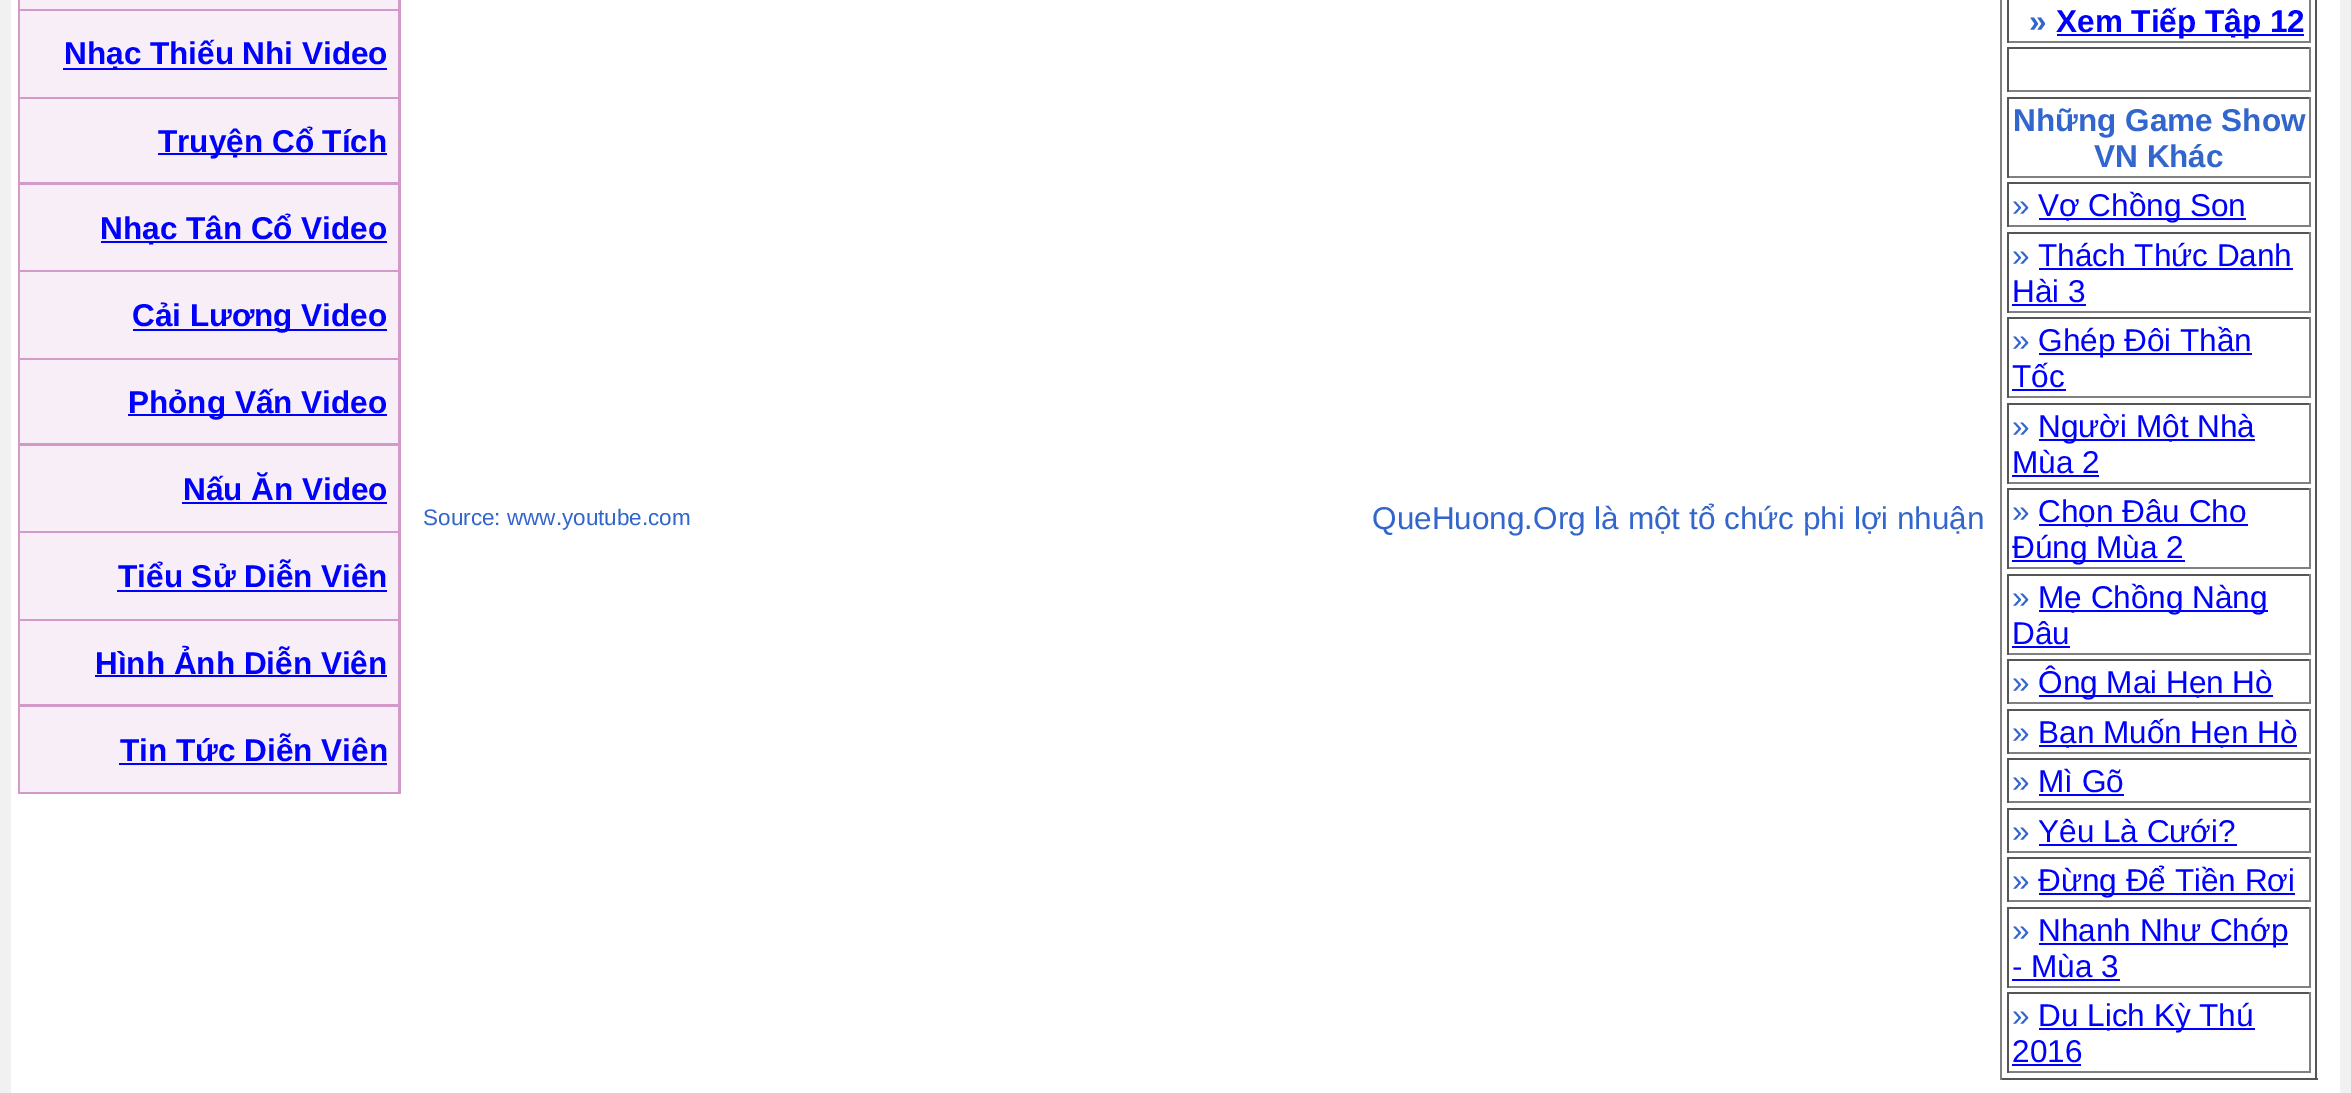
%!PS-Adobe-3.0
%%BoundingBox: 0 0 2351 1093
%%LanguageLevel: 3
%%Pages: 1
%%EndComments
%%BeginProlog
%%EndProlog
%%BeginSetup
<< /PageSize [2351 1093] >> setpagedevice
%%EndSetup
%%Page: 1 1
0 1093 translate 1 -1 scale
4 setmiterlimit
0.945 setgray
0 0 2351 1093 rectfill
1 setgray
11 0 2329 1093 rectfill
0.824 0.604 0.784 setrgbcolor
18 0 383 794 rectfill
0.969 0.933 0.969 setrgbcolor
20 0 378 9 rectfill
20 11 378 86 rectfill
0 0 1 setrgbcolor
63 68 324 2 rectfill
0.969 0.933 0.969 setrgbcolor
20 99 378 83 rectfill
0 0 1 setrgbcolor
158 153 229 2 rectfill
0.969 0.933 0.969 setrgbcolor
20 185 378 85 rectfill
0 0 1 setrgbcolor
101 241 286 2 rectfill
0.969 0.933 0.969 setrgbcolor
20 272 378 86 rectfill
0 0 1 setrgbcolor
133 329 254 2 rectfill
0.969 0.933 0.969 setrgbcolor
20 360 378 83 rectfill
0 0 1 setrgbcolor
128 414 259 2 rectfill
0.969 0.933 0.969 setrgbcolor
20 446 378 85 rectfill
0 0 1 setrgbcolor
182 502 205 2 rectfill
0.969 0.933 0.969 setrgbcolor
20 533 378 86 rectfill
0 0 1 setrgbcolor
117 590 270 2 rectfill
0.969 0.933 0.969 setrgbcolor
20 621 378 83 rectfill
0 0 1 setrgbcolor
95 675 292 2 rectfill
0.969 0.933 0.969 setrgbcolor
20 707 378 85 rectfill
0 0 1 setrgbcolor
119 763 268 2 rectfill
0.333 setgray
2315 0 2 1080 rectfill
2000 1078 318 2 rectfill
0.502 setgray
2000 0 2 1080 rectfill
2309 0 2 43 rectfill
2007 41 304 2 rectfill
0.333 setgray
2007 0 2 43 rectfill
0 0 1 setrgbcolor
2057 34 247 2 rectfill
0.333 setgray
2007 47 304 2 rectfill
0.502 setgray
2309 47 2 45 rectfill
2007 90 304 2 rectfill
0.333 setgray
2007 47 2 45 rectfill
2007 97 304 2 rectfill
0.502 setgray
2309 97 2 81 rectfill
2007 176 304 2 rectfill
0.333 setgray
2007 97 2 81 rectfill
2007 182 304 2 rectfill
0.502 setgray
2309 182 2 45 rectfill
2007 225 304 2 rectfill
0.333 setgray
2007 182 2 45 rectfill
0 0 1 setrgbcolor
2039 218 207 2 rectfill
0.333 setgray
2007 232 304 2 rectfill
0.502 setgray
2309 232 2 81 rectfill
2007 311 304 2 rectfill
0.333 setgray
2007 232 2 81 rectfill
0 0 1 setrgbcolor
2039 268 254 2 rectfill
2012 304 74 2 rectfill
0.333 setgray
2007 317 304 2 rectfill
0.502 setgray
2309 317 2 81 rectfill
2007 396 304 2 rectfill
0.333 setgray
2007 317 2 81 rectfill
0 0 1 setrgbcolor
2039 353 213 2 rectfill
2012 389 54 2 rectfill
0.333 setgray
2007 403 304 2 rectfill
0.502 setgray
2309 403 2 81 rectfill
2007 482 304 2 rectfill
0.333 setgray
2007 403 2 81 rectfill
0 0 1 setrgbcolor
2039 439 216 2 rectfill
2012 475 87 2 rectfill
0.333 setgray
2007 488 304 2 rectfill
0.502 setgray
2309 488 2 81 rectfill
2007 567 304 2 rectfill
0.333 setgray
2007 488 2 81 rectfill
0 0 1 setrgbcolor
2039 524 209 2 rectfill
2012 560 173 2 rectfill
0.333 setgray
2007 574 304 2 rectfill
0.502 setgray
2309 574 2 81 rectfill
2007 653 304 2 rectfill
0.333 setgray
2007 574 2 81 rectfill
0 0 1 setrgbcolor
2039 610 229 2 rectfill
2012 646 58 2 rectfill
0.333 setgray
2007 659 304 2 rectfill
0.502 setgray
2309 659 2 45 rectfill
2007 702 304 2 rectfill
0.333 setgray
2007 659 2 45 rectfill
0 0 1 setrgbcolor
2039 695 234 2 rectfill
0.333 setgray
2007 709 304 2 rectfill
0.502 setgray
2309 709 2 45 rectfill
2007 752 304 2 rectfill
0.333 setgray
2007 709 2 45 rectfill
0 0 1 setrgbcolor
2039 745 258 2 rectfill
0.333 setgray
2007 758 304 2 rectfill
0.502 setgray
2309 758 2 45 rectfill
2007 801 304 2 rectfill
0.333 setgray
2007 758 2 45 rectfill
0 0 1 setrgbcolor
2039 794 85 2 rectfill
0.333 setgray
2007 808 304 2 rectfill
0.502 setgray
2309 808 2 45 rectfill
2007 851 304 2 rectfill
0.333 setgray
2007 808 2 45 rectfill
0 0 1 setrgbcolor
2039 844 198 2 rectfill
0.333 setgray
2007 857 304 2 rectfill
0.502 setgray
2309 857 2 45 rectfill
2007 900 304 2 rectfill
0.333 setgray
2007 857 2 45 rectfill
0 0 1 setrgbcolor
2039 893 256 2 rectfill
0.333 setgray
2007 907 304 2 rectfill
0.502 setgray
2309 907 2 81 rectfill
2007 986 304 2 rectfill
0.333 setgray
2007 907 2 81 rectfill
0 0 1 setrgbcolor
2039 943 249 2 rectfill
2012 979 108 2 rectfill
0.333 setgray
2007 992 304 2 rectfill
0.502 setgray
2309 992 2 81 rectfill
2007 1071 304 2 rectfill
0.333 setgray
2007 992 2 81 rectfill
0 0 1 setrgbcolor
2039 1028 216 2 rectfill
2012 1064 69 2 rectfill
/LiberationSans-Bold [31.5 0 0 -31.5 0 0] selectfont
64 64 moveto (Nhạc Thiếu Nhi Video) show
158 152 moveto (Truyện Cổ Tích) show
100 239 moveto (Nhạc Tân Cổ Video) show
132 326 moveto (Cải Lương Video) show
128 413 moveto (Phỏng Vấn Video) show
183 500 moveto (Nấu Ăn Video) show
118 587 moveto (Tiểu Sử Diễn Viên) show
95 674 moveto (Hình Ảnh Diễn Viên) show
120 761 moveto (Tin Tức Diễn Viên) show
/LiberationSans-Regular [22.5 0 0 -22.5 0 0] selectfont
0.2 0.4 0.8 setrgbcolor
423 525 moveto (Source: www.youtube.com) show
/LiberationSans-Regular [31.5 0 0 -31.5 0 0] selectfont
1372 529 moveto (QueHuong.Org là một tổ chức phi lợi nhuận) show
/LiberationSans-Bold [31.5 0 0 -31.5 0 0] selectfont
2029 32 moveto (») show
0 0 1 setrgbcolor
2056 32 moveto (Xem Tiếp Tập 12) show
0.2 0.4 0.8 setrgbcolor
2013 131 moveto (Những Game Show) show
2094 167 moveto (VN Khác) show
/LiberationSans-Regular [31.5 0 0 -31.5 0 0] selectfont
2012 216 moveto (») show
0 0 1 setrgbcolor
2038 216 moveto (Vợ Chồng Son) show
0.2 0.4 0.8 setrgbcolor
2012 266 moveto (») show
0 0 1 setrgbcolor
2038 266 moveto (Thách Thức Danh) show
2012 302 moveto (Hài 3) show
0.2 0.4 0.8 setrgbcolor
2012 351 moveto (») show
0 0 1 setrgbcolor
2038 351 moveto (Ghép Đôi Thần) show
2012 387 moveto (Tốc) show
0.2 0.4 0.8 setrgbcolor
2012 437 moveto (») show
0 0 1 setrgbcolor
2038 437 moveto (Người Một Nhà) show
2012 473 moveto (Mùa 2) show
0.2 0.4 0.8 setrgbcolor
2012 522 moveto (») show
0 0 1 setrgbcolor
2038 522 moveto (Chọn Đâu Cho) show
2012 558 moveto (Đúng Mùa 2) show
0.2 0.4 0.8 setrgbcolor
2012 608 moveto (») show
0 0 1 setrgbcolor
2038 608 moveto (Mẹ Chồng Nàng) show
2012 644 moveto (Dâu) show
0.2 0.4 0.8 setrgbcolor
2012 693 moveto (») show
0 0 1 setrgbcolor
2038 693 moveto (Ông Mai Hẹn Hò) show
0.2 0.4 0.8 setrgbcolor
2012 743 moveto (») show
0 0 1 setrgbcolor
2038 743 moveto (Bạn Muốn Hẹn Hò) show
0.2 0.4 0.8 setrgbcolor
2012 792 moveto (») show
0 0 1 setrgbcolor
2038 792 moveto (Mì Gõ) show
0.2 0.4 0.8 setrgbcolor
2012 842 moveto (») show
0 0 1 setrgbcolor
2038 842 moveto (Yêu Là Cưới?) show
0.2 0.4 0.8 setrgbcolor
2012 891 moveto (») show
0 0 1 setrgbcolor
2038 891 moveto (Đừng Để Tiền Rơi) show
0.2 0.4 0.8 setrgbcolor
2012 941 moveto (») show
0 0 1 setrgbcolor
2038 941 moveto (Nhanh Như Chớp) show
2012 977 moveto (- Mùa 3) show
0.2 0.4 0.8 setrgbcolor
2012 1026 moveto (») show
0 0 1 setrgbcolor
2038 1026 moveto (Du Lịch Kỳ Thú) show
2012 1062 moveto (2016) show
showpage
%%EOF
